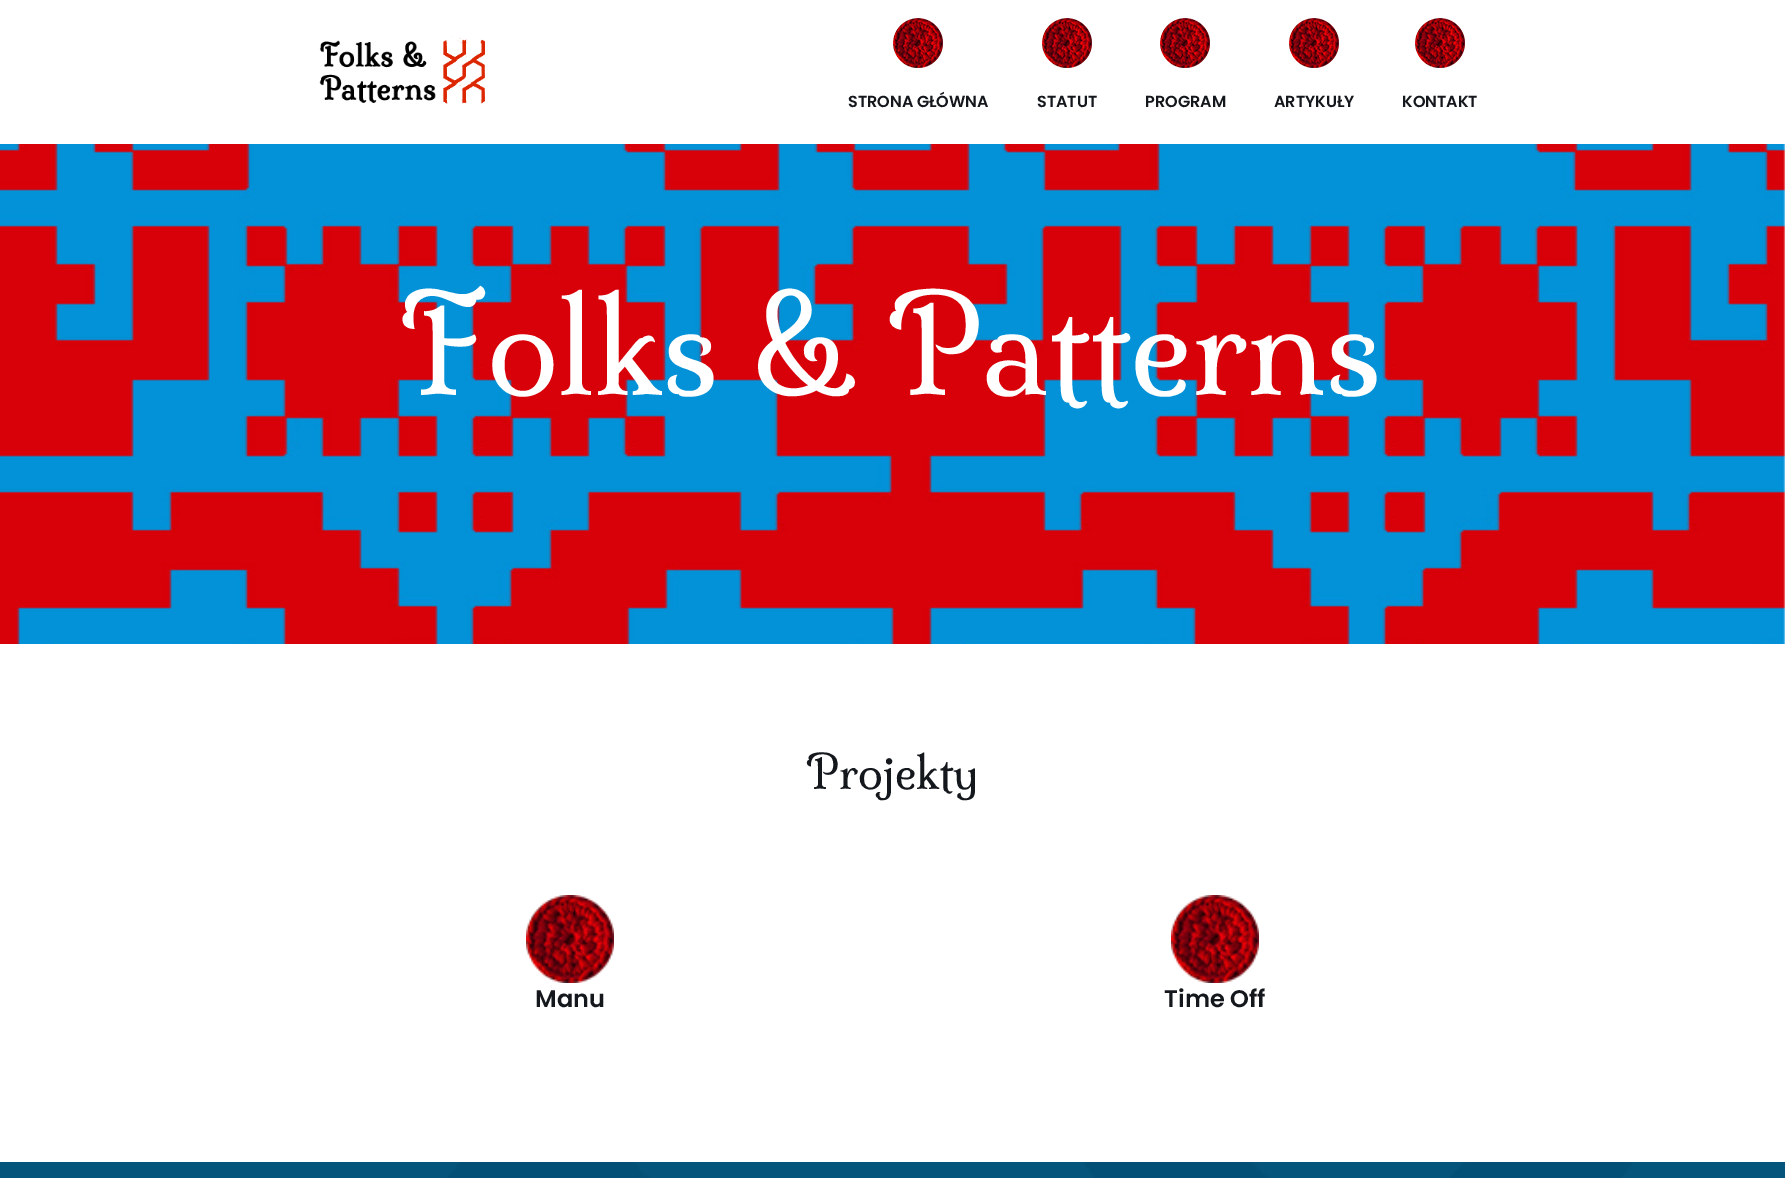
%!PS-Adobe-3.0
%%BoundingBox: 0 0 1785 1178
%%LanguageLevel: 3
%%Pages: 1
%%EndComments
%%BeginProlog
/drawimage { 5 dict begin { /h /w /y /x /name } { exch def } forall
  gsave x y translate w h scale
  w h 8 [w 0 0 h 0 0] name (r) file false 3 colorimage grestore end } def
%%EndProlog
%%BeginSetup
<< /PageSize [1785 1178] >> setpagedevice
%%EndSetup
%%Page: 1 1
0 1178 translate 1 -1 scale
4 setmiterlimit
1 setgray
0 0 1785 1178 rectfill
(images/1.raw) 319 36 166 68 drawimage
(images/2.raw) 893 18 50 50 drawimage
(images/2.raw) 1042 18 50 50 drawimage
(images/2.raw) 1160 18 50 50 drawimage
(images/2.raw) 1289 18 50 50 drawimage
(images/2.raw) 1415 18 50 50 drawimage
(images/3.raw) 0 144 1785 500 drawimage
(images/4.raw) 526 895 88 88 drawimage
(images/5.raw) 1171 895 88 88 drawimage
(images/6.raw) 0 1162 1785 16 drawimage
/Poppins-SemiBold [16 0 0 -16 0 0] selectfont
0.078 0.09 0.11 setrgbcolor
848 107 moveto (STRONA GŁÓWNA) show
1037 107 moveto (STATUT) show
1145 107 moveto (PROGRAM) show
1274 107 moveto (ARTYKUŁY) show
1402 107 moveto (KONTAKT) show
/Milonga-Regular [130 0 0 -130 0 0] selectfont
1 setgray
402 395 moveto (Folks & Patterns) show
/Milonga-Regular [45 0 0 -45 0 0] selectfont
0.078 0.09 0.11 setrgbcolor
807 789 moveto (Projekty) show
/Poppins-SemiBold [24 0 0 -24 0 0] selectfont
535 1007 moveto (Manu) show
1164 1007 moveto (Time Off) show
showpage
%%EOF
